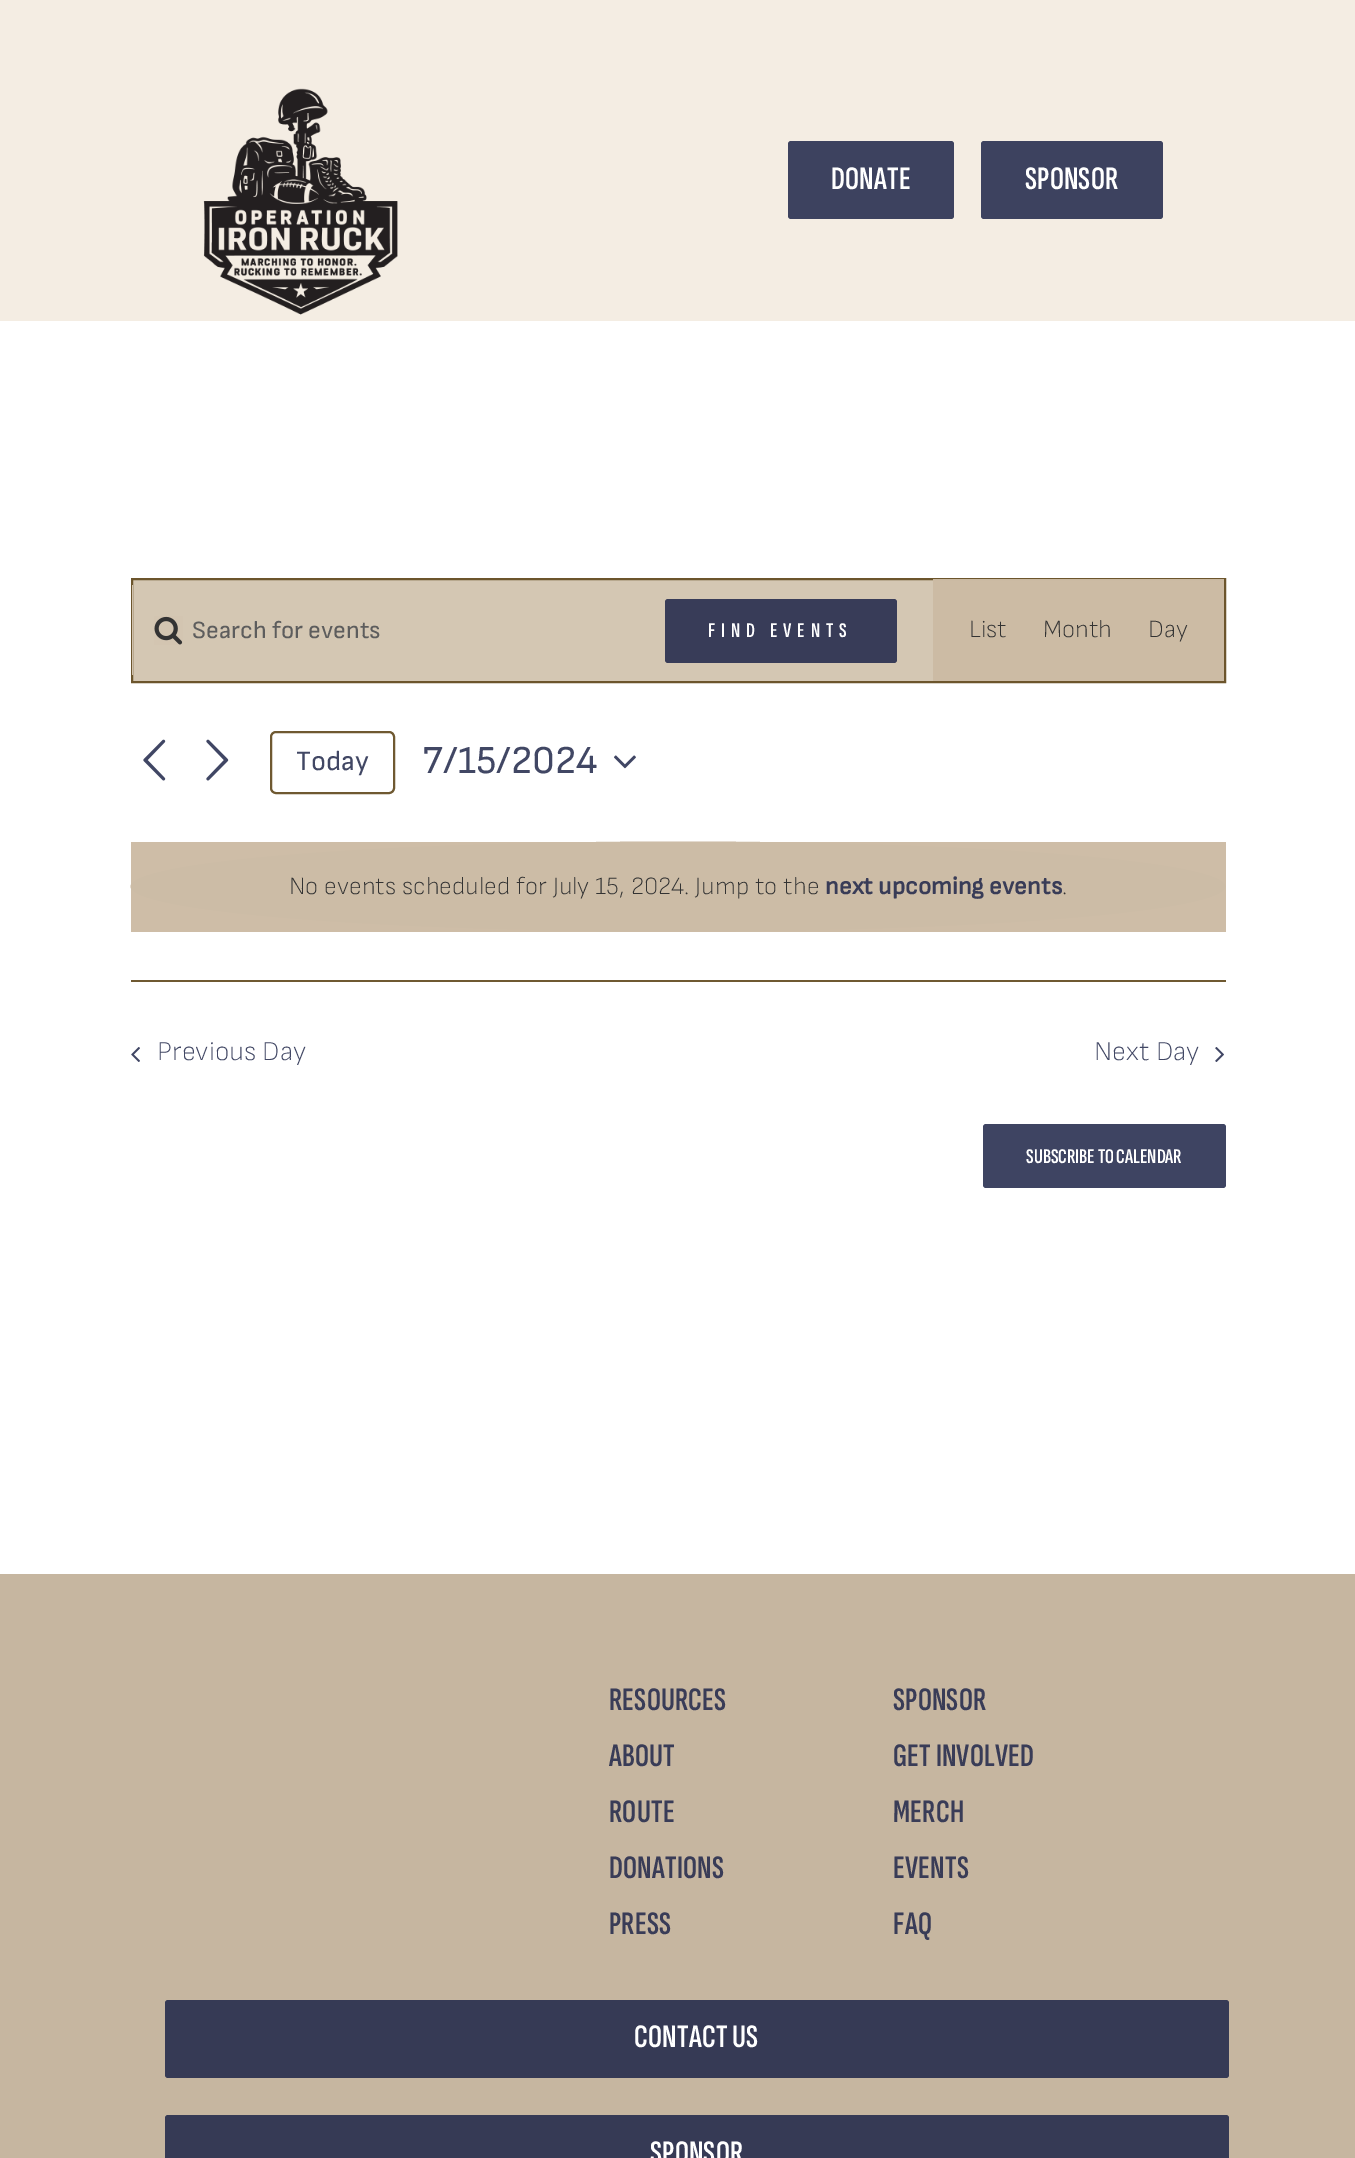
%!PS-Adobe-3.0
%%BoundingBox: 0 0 1355 2158
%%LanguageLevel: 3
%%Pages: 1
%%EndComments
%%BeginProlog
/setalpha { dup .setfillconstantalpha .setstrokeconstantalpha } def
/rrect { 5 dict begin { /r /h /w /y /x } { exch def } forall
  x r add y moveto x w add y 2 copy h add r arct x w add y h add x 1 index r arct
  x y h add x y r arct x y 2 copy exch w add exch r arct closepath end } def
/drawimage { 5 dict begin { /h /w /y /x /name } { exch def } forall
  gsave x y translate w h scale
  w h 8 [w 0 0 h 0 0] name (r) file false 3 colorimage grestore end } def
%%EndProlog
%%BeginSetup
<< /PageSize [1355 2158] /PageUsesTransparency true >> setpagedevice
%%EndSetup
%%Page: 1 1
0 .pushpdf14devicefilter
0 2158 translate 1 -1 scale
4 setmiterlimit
1 setgray
0 0 1355 2158 rectfill
0.957 0.929 0.89 setrgbcolor
0 0 1355 321 rectfill
(images/1.raw) 203 88 195 227 drawimage
0.239 0.259 0.373 setrgbcolor
788 141 166 78 3 rrect fill
981 141 182 78 3 rrect fill
0.808 0.741 0.655 setrgbcolor
131 842 1095 90 rectfill
0.831 0.78 0.702 setrgbcolor
newpath 132 579 moveto 1225 579 lineto 1225 682 lineto 132 682 lineto closepath gsave fill grestore
0.424 0.333 0.173 setrgbcolor
2 setlinewidth
stroke
0.97 setalpha
0.827 0.773 0.694 setrgbcolor
132 585 1 90 rectfill
1 setalpha
(images/2.raw) 154 616 29 29 drawimage
0.22 0.235 0.345 setrgbcolor
665 599 232 64 3 rrect fill
0.97 setalpha
0.8 0.733 0.643 setrgbcolor
933 579 291 102 rectfill
1 setalpha
(images/3.raw) 143 739 23 42 drawimage
(images/4.raw) 206 739 23 42 drawimage
0.435 0.349 0.192 setrgbcolor
271 732 123 61 5 rrect stroke
(images/5.raw) 614 755 22 14 drawimage
0.8 0.737 0.651 setrgbcolor
newpath 678 841.5 moveto 980.5 841.5 1225.5 861.5 1225.5 886.5 curveto 1225.5 911.5 980.5 931.5 678 931.5 curveto 375.5 931.5 130.5 911.5 130.5 886.5 curveto 130.5 861.5 375.5 841.5 678 841.5 curveto closepath fill
0.435 0.349 0.192 setrgbcolor
131 980 1095 2 rectfill
(images/6.raw) 131 1047 9 15 drawimage
(images/7.raw) 1215 1047 9 15 drawimage
0.243 0.267 0.384 setrgbcolor
983 1124 243 64 3 rrect fill
0.776 0.714 0.627 setrgbcolor
0 1574 1355 584 rectfill
0.212 0.227 0.333 setrgbcolor
165 2000 1064 78 3 rrect fill
165 2115 1064 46 3 rrect fill
/SofiaSansExtraCondensed-SemiBold [33 0 0 -33 0 0] selectfont
1 setgray
831 189 moveto 0.25 0 (DONATE) ashow
1025 189 moveto 0.25 0 (SPONSOR) ashow
/SofiaSans-Regular [24.75 0 0 -24.75 0 0] selectfont
0.365 setgray
192 638 moveto (Search for events) show
/SofiaSansExtraCondensed-SemiBold [21 0 0 -21 0 0] selectfont
1 setgray
708 637 moveto 6 0 (FIND EVENTS) ashow
/SofiaSans-ExtraLight [24.75 0 0 -24.75 0 0] selectfont
0.2 setgray
969 637 moveto (List) show
1043 637 moveto (Month) show
1148 637 moveto (Day) show
/SofiaSans-Regular [28 0 0 -28 0 0] selectfont
0.255 0.278 0.392 setrgbcolor
296 770 moveto (Today) show
/SofiaSans-Regular [39.5 0 0 -39.5 0 0] selectfont
422 773 moveto (7/15/2024) show
/SofiaSans-ExtraLight [24.75 0 0 -24.75 0 0] selectfont
0.2 setgray
289 894 moveto (No events scheduled for July 15, 2024. Jump to the) show
/SofiaSans-Bold [24.75 0 0 -24.75 0 0] selectfont
0.224 0.235 0.341 setrgbcolor
825 894 moveto (next upcoming events) show
/SofiaSans-ExtraLight [24.75 0 0 -24.75 0 0] selectfont
0.2 setgray
1062 894 moveto (.) show
/SofiaSans-ExtraLight [27.25 0 0 -27.25 0 0] selectfont
0.255 0.278 0.392 setrgbcolor
157 1060 moveto (Previous Day) show
1094 1060 moveto (Next Day) show
/SofiaSansExtraCondensed-SemiBold [21 0 0 -21 0 0] selectfont
1 setgray
1026 1163 moveto (SUBSCRIBE TO CALENDAR) show
/SofiaSansExtraCondensed-SemiBold [33 0 0 -33 0 0] selectfont
0.224 0.235 0.341 setrgbcolor
609 1710 moveto 0.25 0 (RESOURCES) ashow
609 1766 moveto 0.25 0 (ABOUT) ashow
609 1822 moveto 0.25 0 (ROUTE) ashow
609 1878 moveto 0.25 0 (DONATIONS) ashow
609 1934 moveto 0.25 0 (PRESS) ashow
893 1710 moveto 0.25 0 (SPONSOR) ashow
893 1766 moveto 0.25 0 (GET INVOLVED) ashow
893 1822 moveto 0.25 0 (MERCH) ashow
893 1878 moveto 0.25 0 (EVENTS) ashow
893 1934 moveto 0.25 0 (FAQ) ashow
1 setgray
634 2047 moveto 0.25 0 (CONTACT US) ashow
650 2163 moveto 0.25 0 (SPONSOR) ashow
.poppdf14devicefilter showpage
%%EOF
